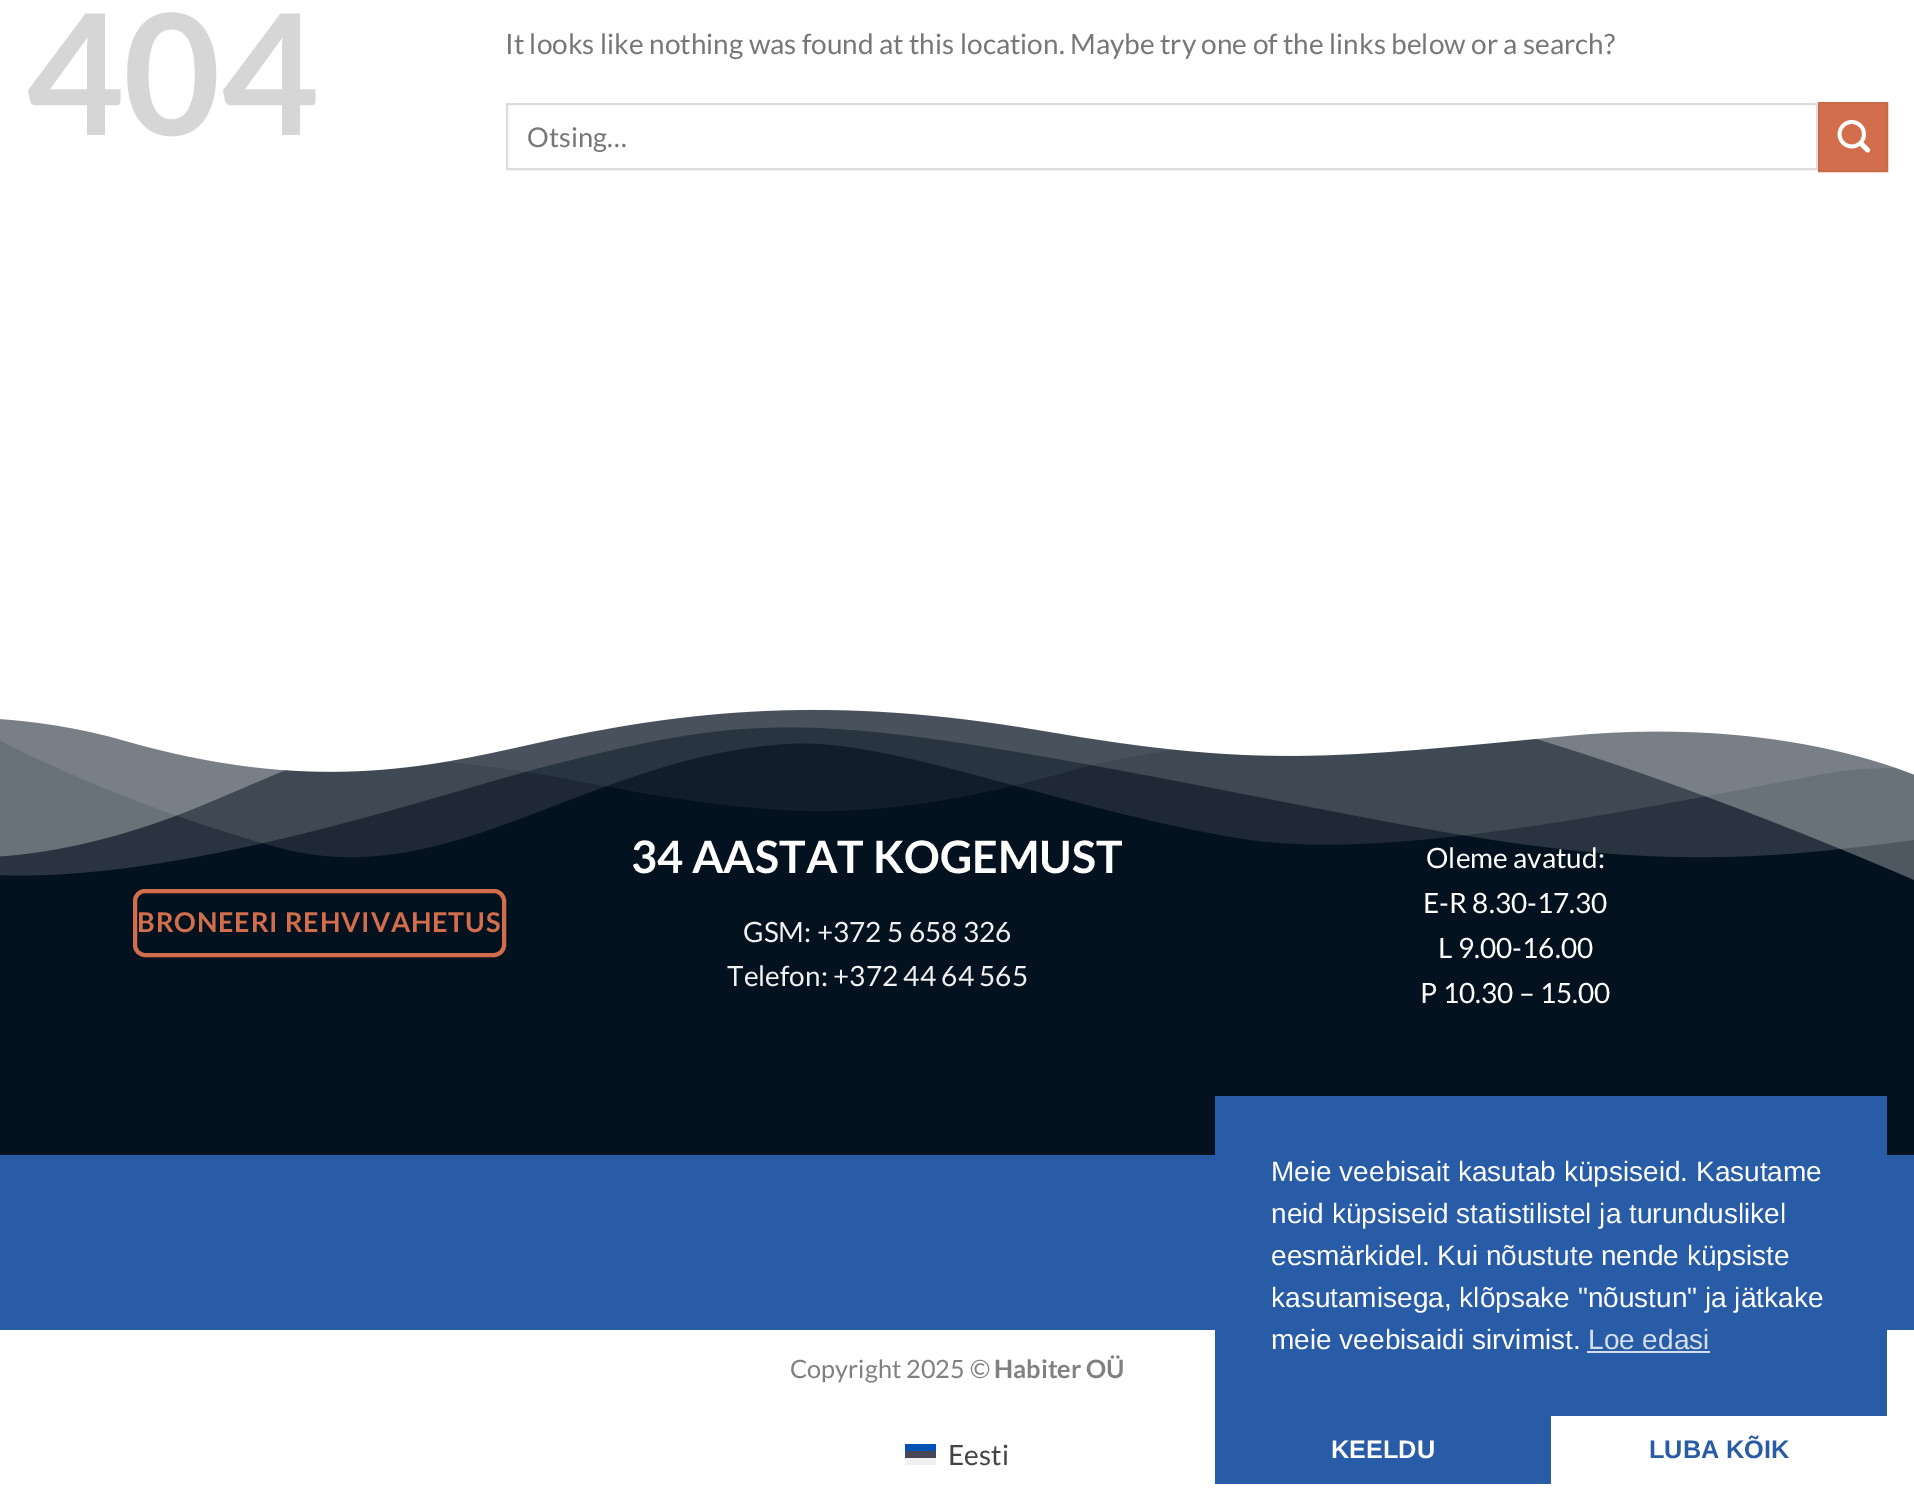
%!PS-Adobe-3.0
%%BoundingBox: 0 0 1914 1512
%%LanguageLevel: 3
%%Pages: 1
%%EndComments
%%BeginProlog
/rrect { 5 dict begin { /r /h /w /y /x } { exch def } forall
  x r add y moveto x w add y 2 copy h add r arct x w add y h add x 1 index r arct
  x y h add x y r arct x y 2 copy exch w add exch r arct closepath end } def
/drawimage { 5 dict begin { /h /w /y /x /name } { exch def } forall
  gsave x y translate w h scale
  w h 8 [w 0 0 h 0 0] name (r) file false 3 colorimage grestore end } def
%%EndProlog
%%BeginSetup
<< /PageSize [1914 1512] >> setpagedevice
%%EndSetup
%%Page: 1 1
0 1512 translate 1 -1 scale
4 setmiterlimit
1 setgray
0 0 1914 1512 rectfill
0.867 setgray
2 setlinewidth
507 104 1310 65 rectstroke
0.824 0.431 0.294 setrgbcolor
newpath 1819 103 moveto 1887 103 lineto 1887 171 lineto 1819 171 lineto closepath gsave fill grestore
0.784 0.412 0.278 setrgbcolor
stroke
(images/1.raw) 1837 119 34 34 drawimage
0.016 0.067 0.118 setrgbcolor
0 709 1914 446 rectfill
(images/2.raw) 0 702 1914 178 drawimage
0.824 0.431 0.294 setrgbcolor
4 setlinewidth
135 891 369 64 10 rrect stroke
0.161 0.361 0.655 setrgbcolor
0 1155 1914 175 rectfill
0 0.322 0.706 setrgbcolor
905 1444 31 7 rectfill
0.275 0.275 0.333 setrgbcolor
905 1451 31 7 rectfill
0.941 setgray
905 1458 31 7 rectfill
0.161 0.361 0.655 setrgbcolor
1215 1096 672 388 rectfill
0.831 0.871 0.929 setrgbcolor
1587 1351 123 2 rectfill
1 setgray
1551 1416 336 68 rectfill
/Lato-Bold [168 0 0 -168 0 0] selectfont
0.839 setgray
26 135 moveto (404) show
/Lato-Regular [28 0 0 -28 0 0] selectfont
0.467 setgray
505 54 moveto (It looks like nothing was found at this location. Maybe try one of the links below or a search?) show
/Lato-Regular [27.2 0 0 -27.2 0 0] selectfont
527 147 moveto (Otsing…) show
/Lato-Bold [27.2 0 0 -27.2 0 0] selectfont
0.824 0.431 0.294 setrgbcolor
137 932 moveto 0.8 0 (BRONEERI REHVIVAHETUS) ashow
/Lato-Bold [44.75 0 0 -44.75 0 0] selectfont
1 setgray
631 873 moveto (34 AASTAT KOGEMUST) show
/Lato-Regular [28 0 0 -28 0 0] selectfont
0.945 setgray
743 942 moveto (GSM: +372 5 658 326) show
727 986 moveto (Telefon: +372 44 64 565) show
1 setgray
1426 868 moveto (Oleme avatud:) show
1423 913 moveto (E-R 8.30-17.30) show
1438 958 moveto (L 9.00-16.00) show
1420 1003 moveto (P 10.30 – 15.00) show
/Lato-Regular [25.25 0 0 -25.25 0 0] selectfont
0.502 setgray
790 1378 moveto (Copyright 2025 ©) show
/Lato-Bold [25.25 0 0 -25.25 0 0] selectfont
994 1378 moveto (Habiter OÜ) show
/Lato-Regular [28 0 0 -28 0 0] selectfont
0.267 setgray
948 1465 moveto (Eesti) show
/LiberationSans-Regular [28 0 0 -28 0 0] selectfont
1 setgray
1271 1181 moveto (Meie veebisait kasutab küpsiseid. Kasutame) show
1271 1223 moveto (neid küpsiseid statistilistel ja turunduslikel) show
1271 1265 moveto (eesmärkidel. Kui nõustute nende küpsiste) show
1271 1307 moveto (kasutamisega, klõpsake "nõustun" ja jätkake) show
1271 1349 moveto (meie veebisaidi sirvimist.) show
0.831 0.871 0.929 setrgbcolor
1588 1349 moveto (Loe edasi) show
/LiberationSans-Bold [25.25 0 0 -25.25 0 0] selectfont
1 setgray
1331 1458 moveto (KEELDU) show
0.161 0.361 0.655 setrgbcolor
1649 1458 moveto (LUBA KÕIK) show
showpage
%%EOF
